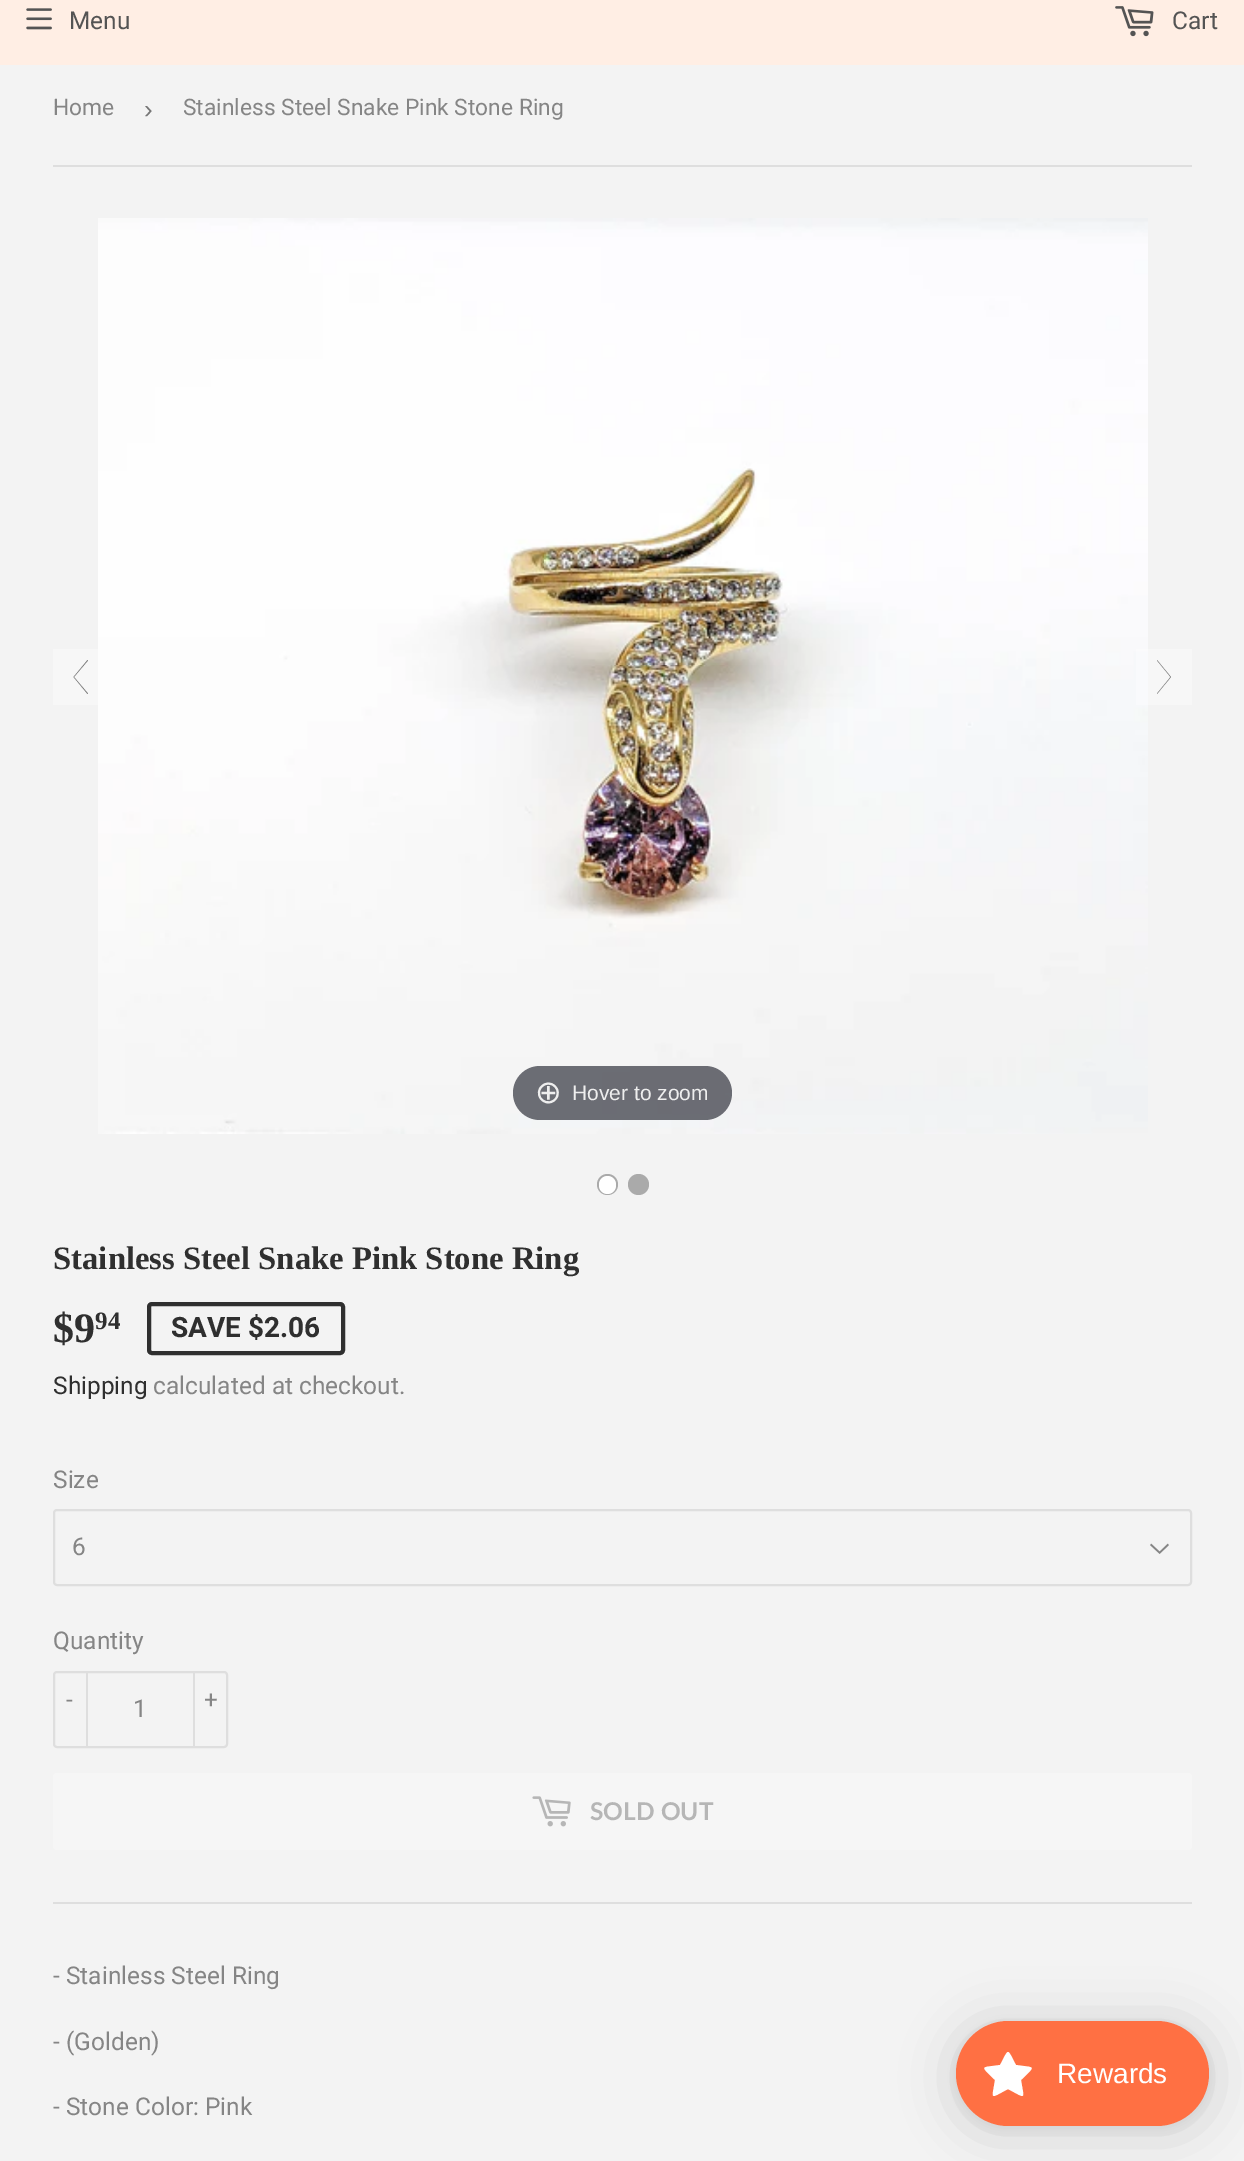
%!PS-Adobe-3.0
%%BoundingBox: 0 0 1244 2161
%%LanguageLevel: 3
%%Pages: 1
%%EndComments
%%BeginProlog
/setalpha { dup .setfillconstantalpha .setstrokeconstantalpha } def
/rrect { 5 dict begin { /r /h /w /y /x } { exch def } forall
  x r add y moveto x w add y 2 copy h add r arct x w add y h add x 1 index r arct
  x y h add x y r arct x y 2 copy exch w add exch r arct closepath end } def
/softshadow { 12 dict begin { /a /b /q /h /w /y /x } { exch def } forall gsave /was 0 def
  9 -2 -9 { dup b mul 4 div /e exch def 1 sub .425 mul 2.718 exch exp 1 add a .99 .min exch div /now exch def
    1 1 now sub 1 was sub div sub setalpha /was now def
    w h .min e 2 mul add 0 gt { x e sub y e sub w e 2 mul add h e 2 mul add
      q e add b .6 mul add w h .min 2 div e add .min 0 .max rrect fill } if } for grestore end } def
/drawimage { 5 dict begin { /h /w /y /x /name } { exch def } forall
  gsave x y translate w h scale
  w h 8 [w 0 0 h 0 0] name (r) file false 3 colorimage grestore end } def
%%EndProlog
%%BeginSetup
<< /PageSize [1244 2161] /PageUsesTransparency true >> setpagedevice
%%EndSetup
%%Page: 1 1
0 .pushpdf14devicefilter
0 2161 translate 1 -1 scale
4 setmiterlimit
0.953 setgray
0 0 1244 2161 rectfill
1 0.933 0.894 setrgbcolor
0 0 1244 65 rectfill
(images/1.raw) 26 8 26 22 drawimage
(images/2.raw) 1115 6 39 31 drawimage
0.871 setgray
53 165 1139 2 rectfill
0.3 setalpha
1 setgray
53 649 45 56 rectfill
1 setalpha
0.482 setgray
newpath 73.5 677 moveto 87.5 660 lineto 88 660.5 lineto 74 677 lineto 88 693.5 lineto 87.5 694 lineto closepath fill
(images/3.raw) 98 218 1050 916 drawimage
0.3 setalpha
1 setgray
1136 649 56 56 rectfill
1 setalpha
0.482 setgray
newpath 1171 677 moveto 1157 694 lineto 1157 693.5 lineto 1170.5 677 lineto 1157 660.5 lineto 1157 660 lineto closepath fill
0.7 setalpha
0.192 0.2 0.239 setrgbcolor
513 1066 219 54 27 rrect fill
1 setalpha
0.667 setgray
newpath 607.5 1184.5 10.5 0 360 arc closepath fill
1 setgray
599 1176 17 18 8.5 rrect fill
0.667 setgray
newpath 638.5 1184.5 10.5 0 360 arc closepath fill
0.184 setgray
4 setlinewidth
149 1304 194 49 3 rrect stroke
(images/4.raw) 1150 1543 19 11 drawimage
0.871 setgray
2 setlinewidth
54 1510 1137 75 3 rrect stroke
54 1672 173 75 3 rrect stroke
86 1671 2 77 rectfill
193 1671 2 77 rectfill
0.965 setgray
53 1773 1139 77 4 rrect fill
(images/5.raw) 532 1796 39 31 drawimage
0.871 setgray
53 1902 1139 2 rectfill
0 setgray
956 2025 253 105 52.5 26 0.15 softshadow
956 2023 253 105 52.5 5 0.05 softshadow
1 0.439 0.263 setrgbcolor
956 2021 253 105 52.5 rrect fill
1 setgray
newpath 1008 2052 moveto 1006 2052 1002 2062 1000 2065 curveto 980 2068 980 2065 995 2080 curveto 992 2100 989 2099 1008 2089 curveto 1027 2099 1024 2100 1021 2080 curveto 1036 2065 1036 2068 1016 2065 curveto 1014 2062 1010 2052 1008 2052 curveto closepath fill
/Roboto-Regular [24.5 0 0 -24.5 0 0] selectfont
0.329 setgray
69 29 moveto (Menu) show
1172 29 moveto (Cart) show
/Roboto-Regular [22.75 0 0 -22.75 0 0] selectfont
0.522 setgray
53 115 moveto (Home) show
/LiberationSans-Regular [26 0 0 -26 0 0] selectfont
0.463 setgray
144 118 moveto (›) show
/Roboto-Regular [22.75 0 0 -22.75 0 0] selectfont
0.522 setgray
183 115 moveto (Stainless Steel Snake Pink Stone Ring) show
/DejaVuSans-Regular [32 0 0 -32 0 0] selectfont
0.933 setgray
535 1103 moveto (⊕) show
/LiberationSans-Regular [21 0 0 -21 0 0] selectfont
572 1100 moveto (Hover to zoom) show
/LiberationSerif-Bold [32.7 0 0 -32.7 0 0] selectfont
0.184 setgray
53 1269 moveto (Stainless Steel Snake Pink Stone Ring) show
/LiberationSerif-Bold [42 0 0 -42 0 0] selectfont
53 1342 moveto ($9) show
/LiberationSerif-Bold [25 0 0 -25 0 0] selectfont
95 1329 moveto (94) show
/Roboto-Bold [28 0 0 -28 0 0] selectfont
171 1337 moveto (SAVE $2.06) show
/Roboto-Regular [24.5 0 0 -24.5 0 0] selectfont
53 1394 moveto (Shipping) show
0.522 setgray
153 1394 moveto (calculated at checkout.) show
53 1488 moveto (Size) show
72 1555 moveto (6) show
53 1649 moveto (Quantity) show
66 1708 moveto (-) show
133 1717 moveto (1) show
204 1708 moveto (+) show
/Lato-Bold [24.5 0 0 -24.5 0 0] selectfont
0.714 setgray
590 1820 moveto (SOLD OUT) show
/Roboto-Regular [24.5 0 0 -24.5 0 0] selectfont
0.522 setgray
53 1984 moveto (- Stainless Steel Ring) show
53 2050 moveto (- \(Golden\)) show
53 2115 moveto (- Stone Color: Pink) show
/LiberationSans-Regular [28 0 0 -28 0 0] selectfont
1 setgray
1057 2083 moveto (Rewards) show
.poppdf14devicefilter showpage
%%EOF
